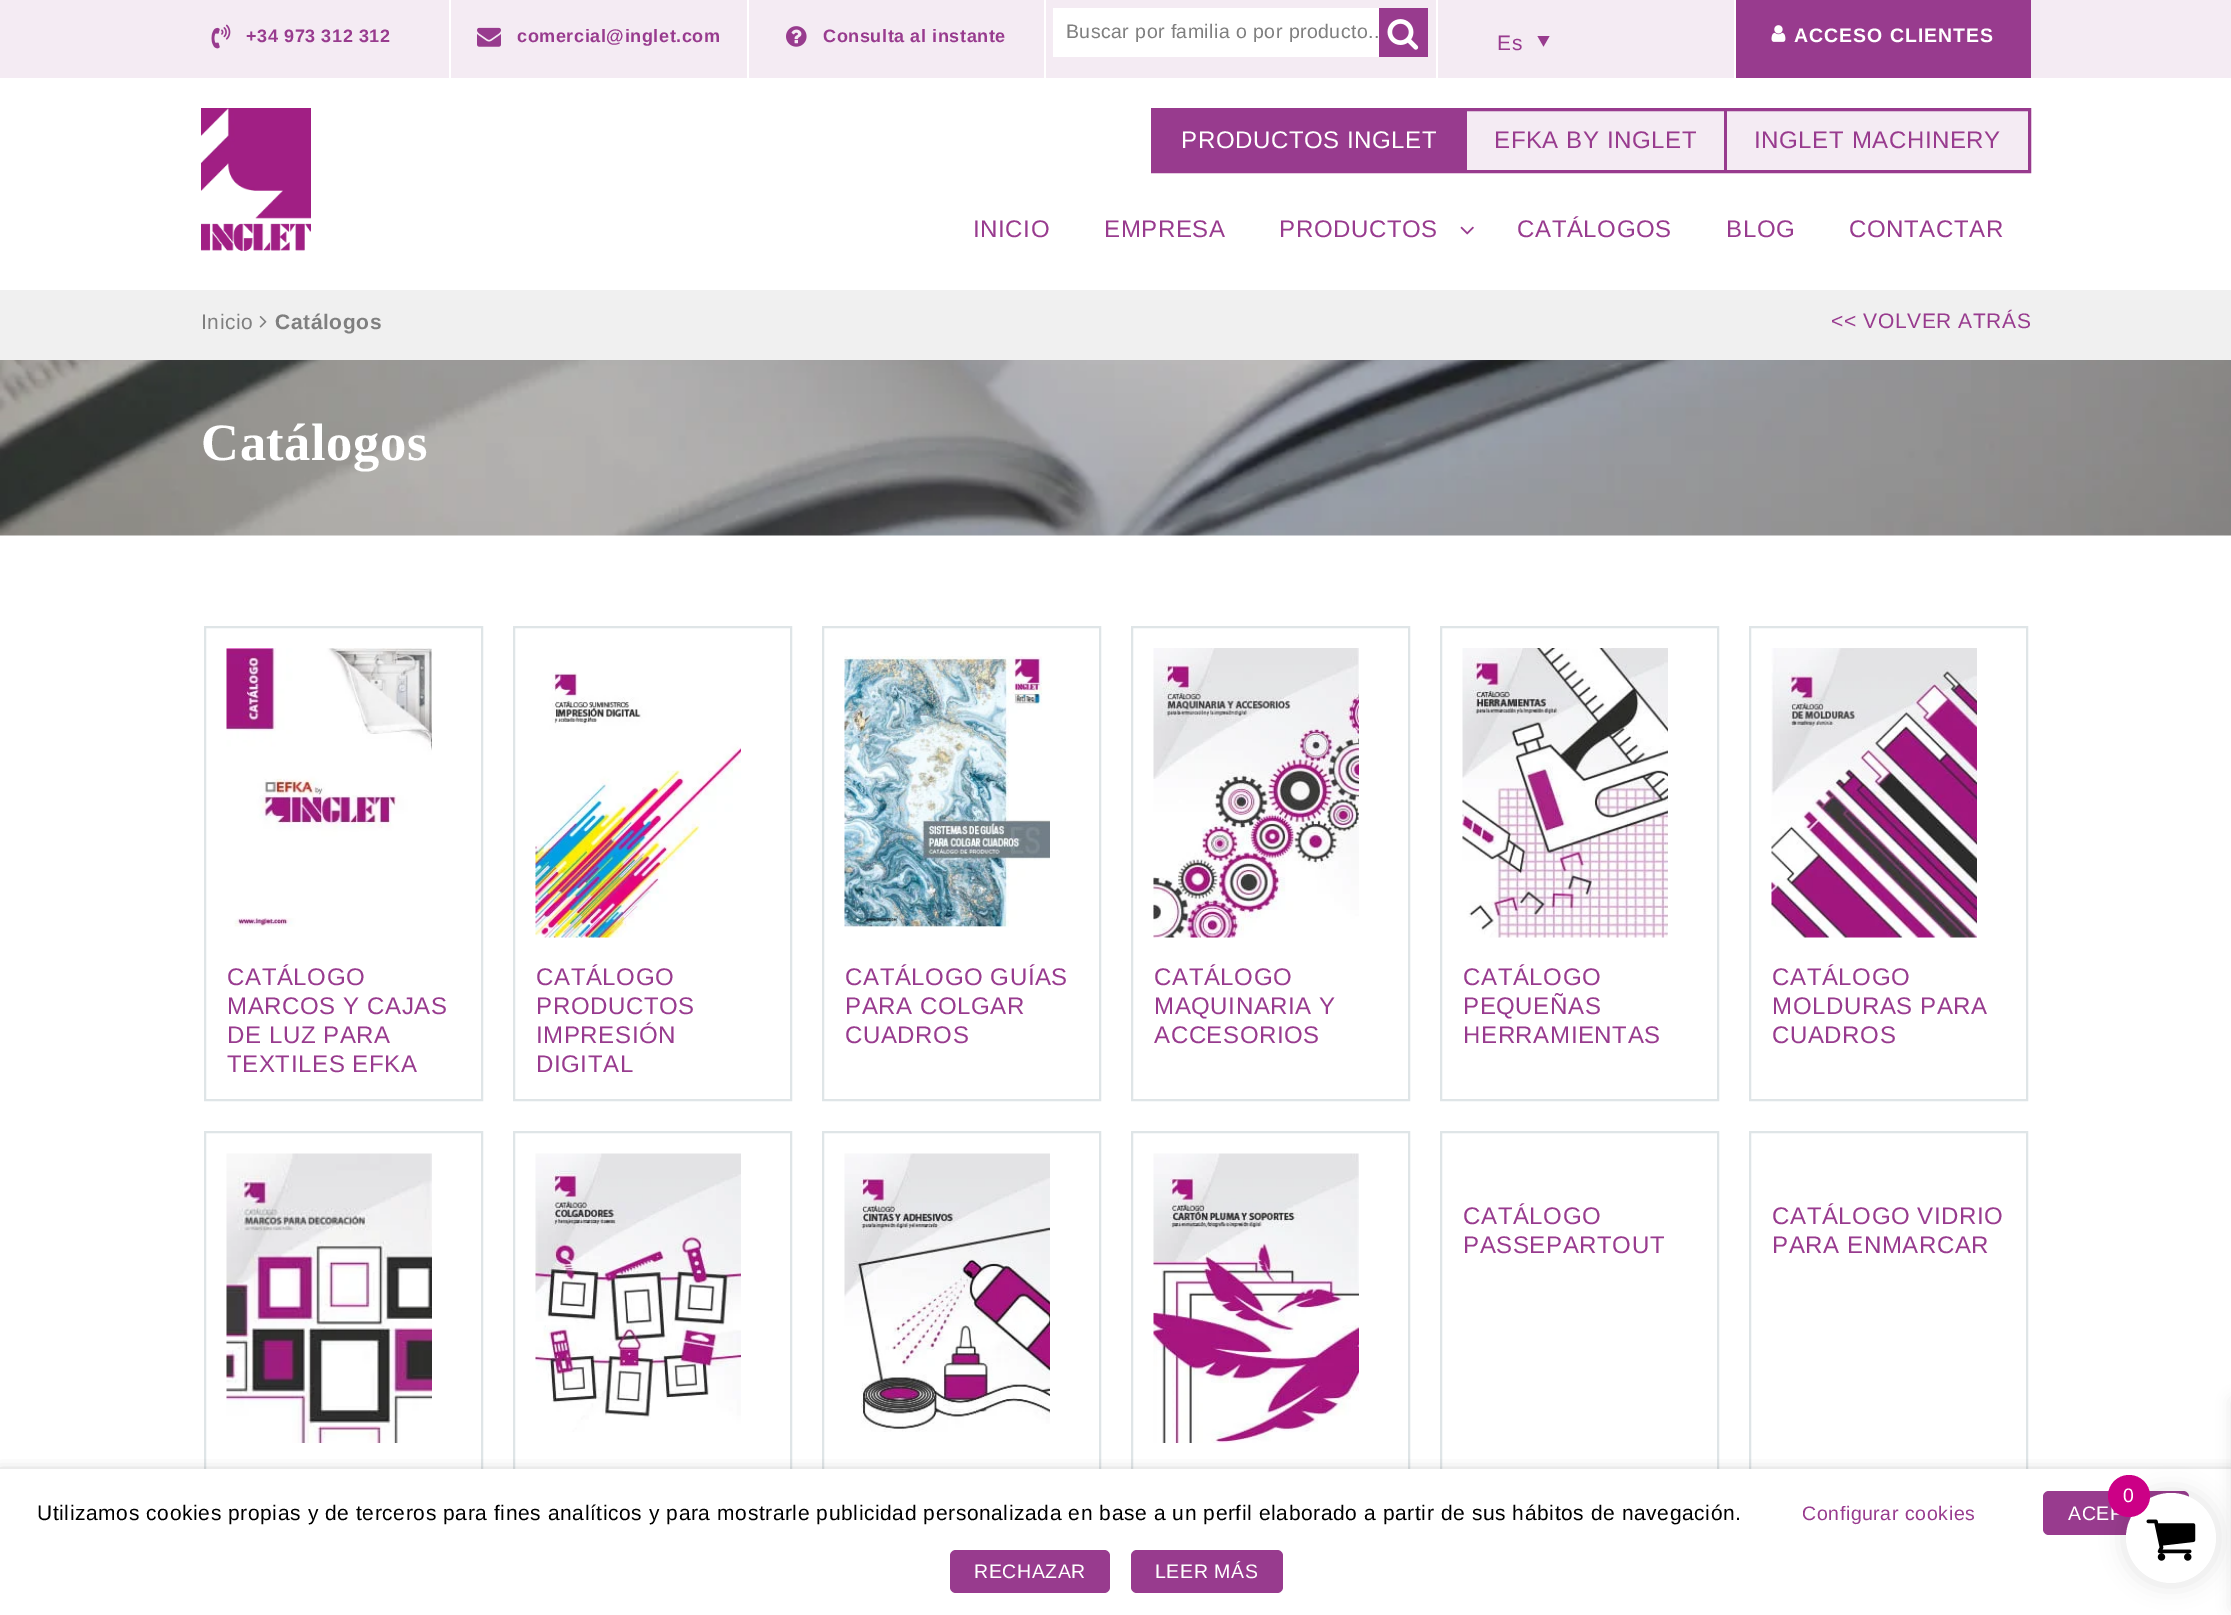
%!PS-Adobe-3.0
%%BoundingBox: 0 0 2231 1615
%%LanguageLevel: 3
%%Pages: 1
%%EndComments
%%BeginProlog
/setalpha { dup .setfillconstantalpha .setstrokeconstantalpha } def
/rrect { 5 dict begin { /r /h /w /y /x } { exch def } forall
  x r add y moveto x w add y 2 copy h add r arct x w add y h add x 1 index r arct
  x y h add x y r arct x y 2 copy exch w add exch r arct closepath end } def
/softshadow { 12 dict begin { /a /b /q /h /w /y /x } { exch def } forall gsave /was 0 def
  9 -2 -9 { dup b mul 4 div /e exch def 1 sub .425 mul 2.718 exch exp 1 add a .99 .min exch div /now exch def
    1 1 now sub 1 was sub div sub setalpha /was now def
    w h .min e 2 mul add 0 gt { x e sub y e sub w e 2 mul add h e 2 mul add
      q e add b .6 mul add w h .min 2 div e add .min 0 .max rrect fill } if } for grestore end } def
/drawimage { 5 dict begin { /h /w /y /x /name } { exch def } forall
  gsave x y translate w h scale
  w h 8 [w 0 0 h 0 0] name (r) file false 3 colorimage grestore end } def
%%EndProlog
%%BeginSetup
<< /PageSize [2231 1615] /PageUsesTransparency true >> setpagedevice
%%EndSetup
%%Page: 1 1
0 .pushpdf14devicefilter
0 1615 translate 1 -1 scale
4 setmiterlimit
1 setgray
0 0 2231 1615 rectfill
0.957 0.922 0.953 setrgbcolor
0 0 2231 78 rectfill
1 setgray
449 0 2 78 rectfill
(images/1.raw) 211 24 20 25 drawimage
747 0 2 78 rectfill
(images/2.raw) 477 27 24 20 drawimage
1044 0 2 78 rectfill
(images/3.raw) 786 26 21 21 drawimage
1436 0 2 78 rectfill
1053 8 326 49 rectfill
0.596 0.231 0.557 setrgbcolor
1379 8 49 49 rectfill
(images/4.raw) 1387 19 32 31 drawimage
1 setgray
1734 0 2 78 rectfill
0.596 0.231 0.557 setrgbcolor
newpath 1537.5 36 moveto 1549.5 36 lineto 1543.5 46.5 lineto closepath fill
1736 0 295 78 rectfill
(images/5.raw) 1771 25 15 17 drawimage
(images/6.raw) 201 108 110 143 drawimage
0.957 0.922 0.953 setrgbcolor
1467 111 561 59 rectfill
0.596 0.231 0.557 setrgbcolor
3 setlinewidth
1152.5 109.5 877 62 rectstroke
1154 111 313 59 rectfill
1724 111 3 59 rectfill
(images/7.raw) 1460 226 14 9 drawimage
0.941 setgray
0 290 2231 70 rectfill
(images/8.raw) 259 316 8 12 drawimage
(images/9.raw) 0 360 2231 176 drawimage
0.875 0.898 0.906 setrgbcolor
2 setlinewidth
205 627 277 473 rectstroke
(images/10.raw) 226 648 206 279 drawimage
514 627 277 473 rectstroke
(images/11.raw) 535 672 206 266 drawimage
823 627 277 473 rectstroke
(images/12.raw) 844 656 206 272 drawimage
1132 627 277 473 rectstroke
(images/13.raw) 1153 648 206 290 drawimage
1441 627 277 473 rectstroke
(images/14.raw) 1462 648 206 290 drawimage
1750 627 277 473 rectstroke
(images/15.raw) 1771 648 206 290 drawimage
205 1132 277 444 rectstroke
(images/16.raw) 226 1153 206 290 drawimage
514 1132 277 444 rectstroke
(images/17.raw) 535 1153 206 279 drawimage
823 1132 277 444 rectstroke
(images/18.raw) 844 1153 206 279 drawimage
1132 1132 277 444 rectstroke
(images/19.raw) 1153 1153 206 290 drawimage
1441 1132 277 444 rectstroke
1750 1132 277 444 rectstroke
0 setgray
0 1476 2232 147 0 7.5 0.5 softshadow
1 setgray
0 1469 2231 146 rectfill
0.596 0.231 0.557 setrgbcolor
2043 1491 146 44 6 rrect fill
0 setgray
2123 1490 96 96 48 11 0.1 softshadow
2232 1400 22 208 0 7.5 0.1 softshadow
1 setgray
newpath 2171 1538 45 0 360 arc closepath fill
(images/20.raw) 2146 1519 50 42 drawimage
0.596 0.231 0.557 setrgbcolor
950 1550 160 43 6 rrect fill
1131 1550 152 43 6 rrect fill
/LiberationSans-Bold [18 0 0 -18 0 0] selectfont
246 42 moveto 0.6 0 (+34 973 312 312) ashow
517 42 moveto 0.6 0 (comercial@inglet.com) ashow
823 42 moveto 0.6 0 (Consulta al instante) ashow
/LiberationSans-Regular [19.5 0 0 -19.5 0 0] selectfont
0.498 setgray
1066 38 moveto 0.45 0 (Buscar por familia o por producto..) ashow
/LiberationSans-Regular [21 0 0 -21 0 0] selectfont
0.596 0.231 0.557 setrgbcolor
1497 50 moveto 0.6 0 (Es) ashow
/LiberationSans-Bold [19.5 0 0 -19.5 0 0] selectfont
1 setgray
1794 42 moveto 1 0 (ACCESO CLIENTES) ashow
/LiberationSans-Regular [24 0 0 -24 0 0] selectfont
1181 148 moveto 0.6 0 (PRODUCTOS INGLET) ashow
0.596 0.231 0.557 setrgbcolor
1494 148 moveto 0.6 0 (EFKA BY INGLET) ashow
1754 148 moveto 0.6 0 (INGLET MACHINERY) ashow
973 237 moveto 0.6 0 (INICIO) ashow
1104 237 moveto 0.6 0 (EMPRESA) ashow
1279 237 moveto 0.6 0 (PRODUCTOS) ashow
1517 237 moveto 0.6 0 (CATÁLOGOS) ashow
1726 237 moveto 0.6 0 (BLOG) ashow
1849 237 moveto 0.6 0 (CONTACTAR) ashow
/LiberationSans-Regular [21 0 0 -21 0 0] selectfont
0.498 setgray
201 329 moveto 0.6 0 (Inicio) ashow
/LiberationSans-Bold [21 0 0 -21 0 0] selectfont
275 329 moveto 0.6 0 (Catálogos) ashow
/LiberationSans-Regular [21 0 0 -21 0 0] selectfont
0.596 0.231 0.557 setrgbcolor
1831 328 moveto 0.6 0 (<< VOLVER ATRÁS) ashow
/LiberationSerif-Bold [52.5 0 0 -52.5 0 0] selectfont
1 setgray
201 460 moveto 0.6 0 (Catálogos) ashow
/LiberationSans-Regular [24 0 0 -24 0 0] selectfont
0.596 0.231 0.557 setrgbcolor
227 985 moveto 0.6 0 (CATÁLOGO) ashow
227 1014 moveto 0.6 0 (MARCOS Y CAJAS) ashow
227 1043 moveto 0.6 0 (DE LUZ PARA) ashow
227 1072 moveto 0.6 0 (TEXTILES EFKA) ashow
536 985 moveto 0.6 0 (CATÁLOGO) ashow
536 1014 moveto 0.6 0 (PRODUCTOS) ashow
536 1043 moveto 0.6 0 (IMPRESIÓN) ashow
536 1072 moveto 0.6 0 (DIGITAL) ashow
845 985 moveto 0.6 0 (CATÁLOGO GUÍAS) ashow
845 1014 moveto 0.6 0 (PARA COLGAR) ashow
845 1043 moveto 0.6 0 (CUADROS) ashow
1154 985 moveto 0.6 0 (CATÁLOGO) ashow
1154 1014 moveto 0.6 0 (MAQUINARIA Y) ashow
1154 1043 moveto 0.6 0 (ACCESORIOS) ashow
1463 985 moveto 0.6 0 (CATÁLOGO) ashow
1463 1014 moveto 0.6 0 (PEQUEÑAS) ashow
1463 1043 moveto 0.6 0 (HERRAMIENTAS) ashow
1772 985 moveto 0.6 0 (CATÁLOGO) ashow
1772 1014 moveto 0.6 0 (MOLDURAS PARA) ashow
1772 1043 moveto 0.6 0 (CUADROS) ashow
1463 1224 moveto 0.6 0 (CATÁLOGO) ashow
1463 1253 moveto 0.6 0 (PASSEPARTOUT) ashow
1772 1224 moveto 0.6 0 (CATÁLOGO VIDRIO) ashow
1772 1253 moveto 0.6 0 (PARA ENMARCAR) ashow
/LiberationSans-Regular [21 0 0 -21 0 0] selectfont
0 setgray
37 1520 moveto 0.6 0 (Utilizamos cookies propias y de terceros para fines analíticos y para mostrarle publicidad personalizada en base a un perfil elaborado a partir de sus hábitos de navegación.) ashow
/LiberationSans-Regular [19.5 0 0 -19.5 0 0] selectfont
0.596 0.231 0.557 setrgbcolor
1802 1520 moveto 0.6 0 (Configurar cookies) ashow
1 setgray
2068 1520 moveto 0.6 0 (ACEP) ashow
0.8 0 0.525 setrgbcolor
newpath 2129 1496 21 0 360 arc closepath fill
1 setgray
2123 1502 moveto 0.6 0 (0) ashow
974 1578 moveto 0.6 0 (RECHAZAR) ashow
1155 1578 moveto 0.6 0 (LEER MÁS) ashow
.poppdf14devicefilter showpage
%%EOF
